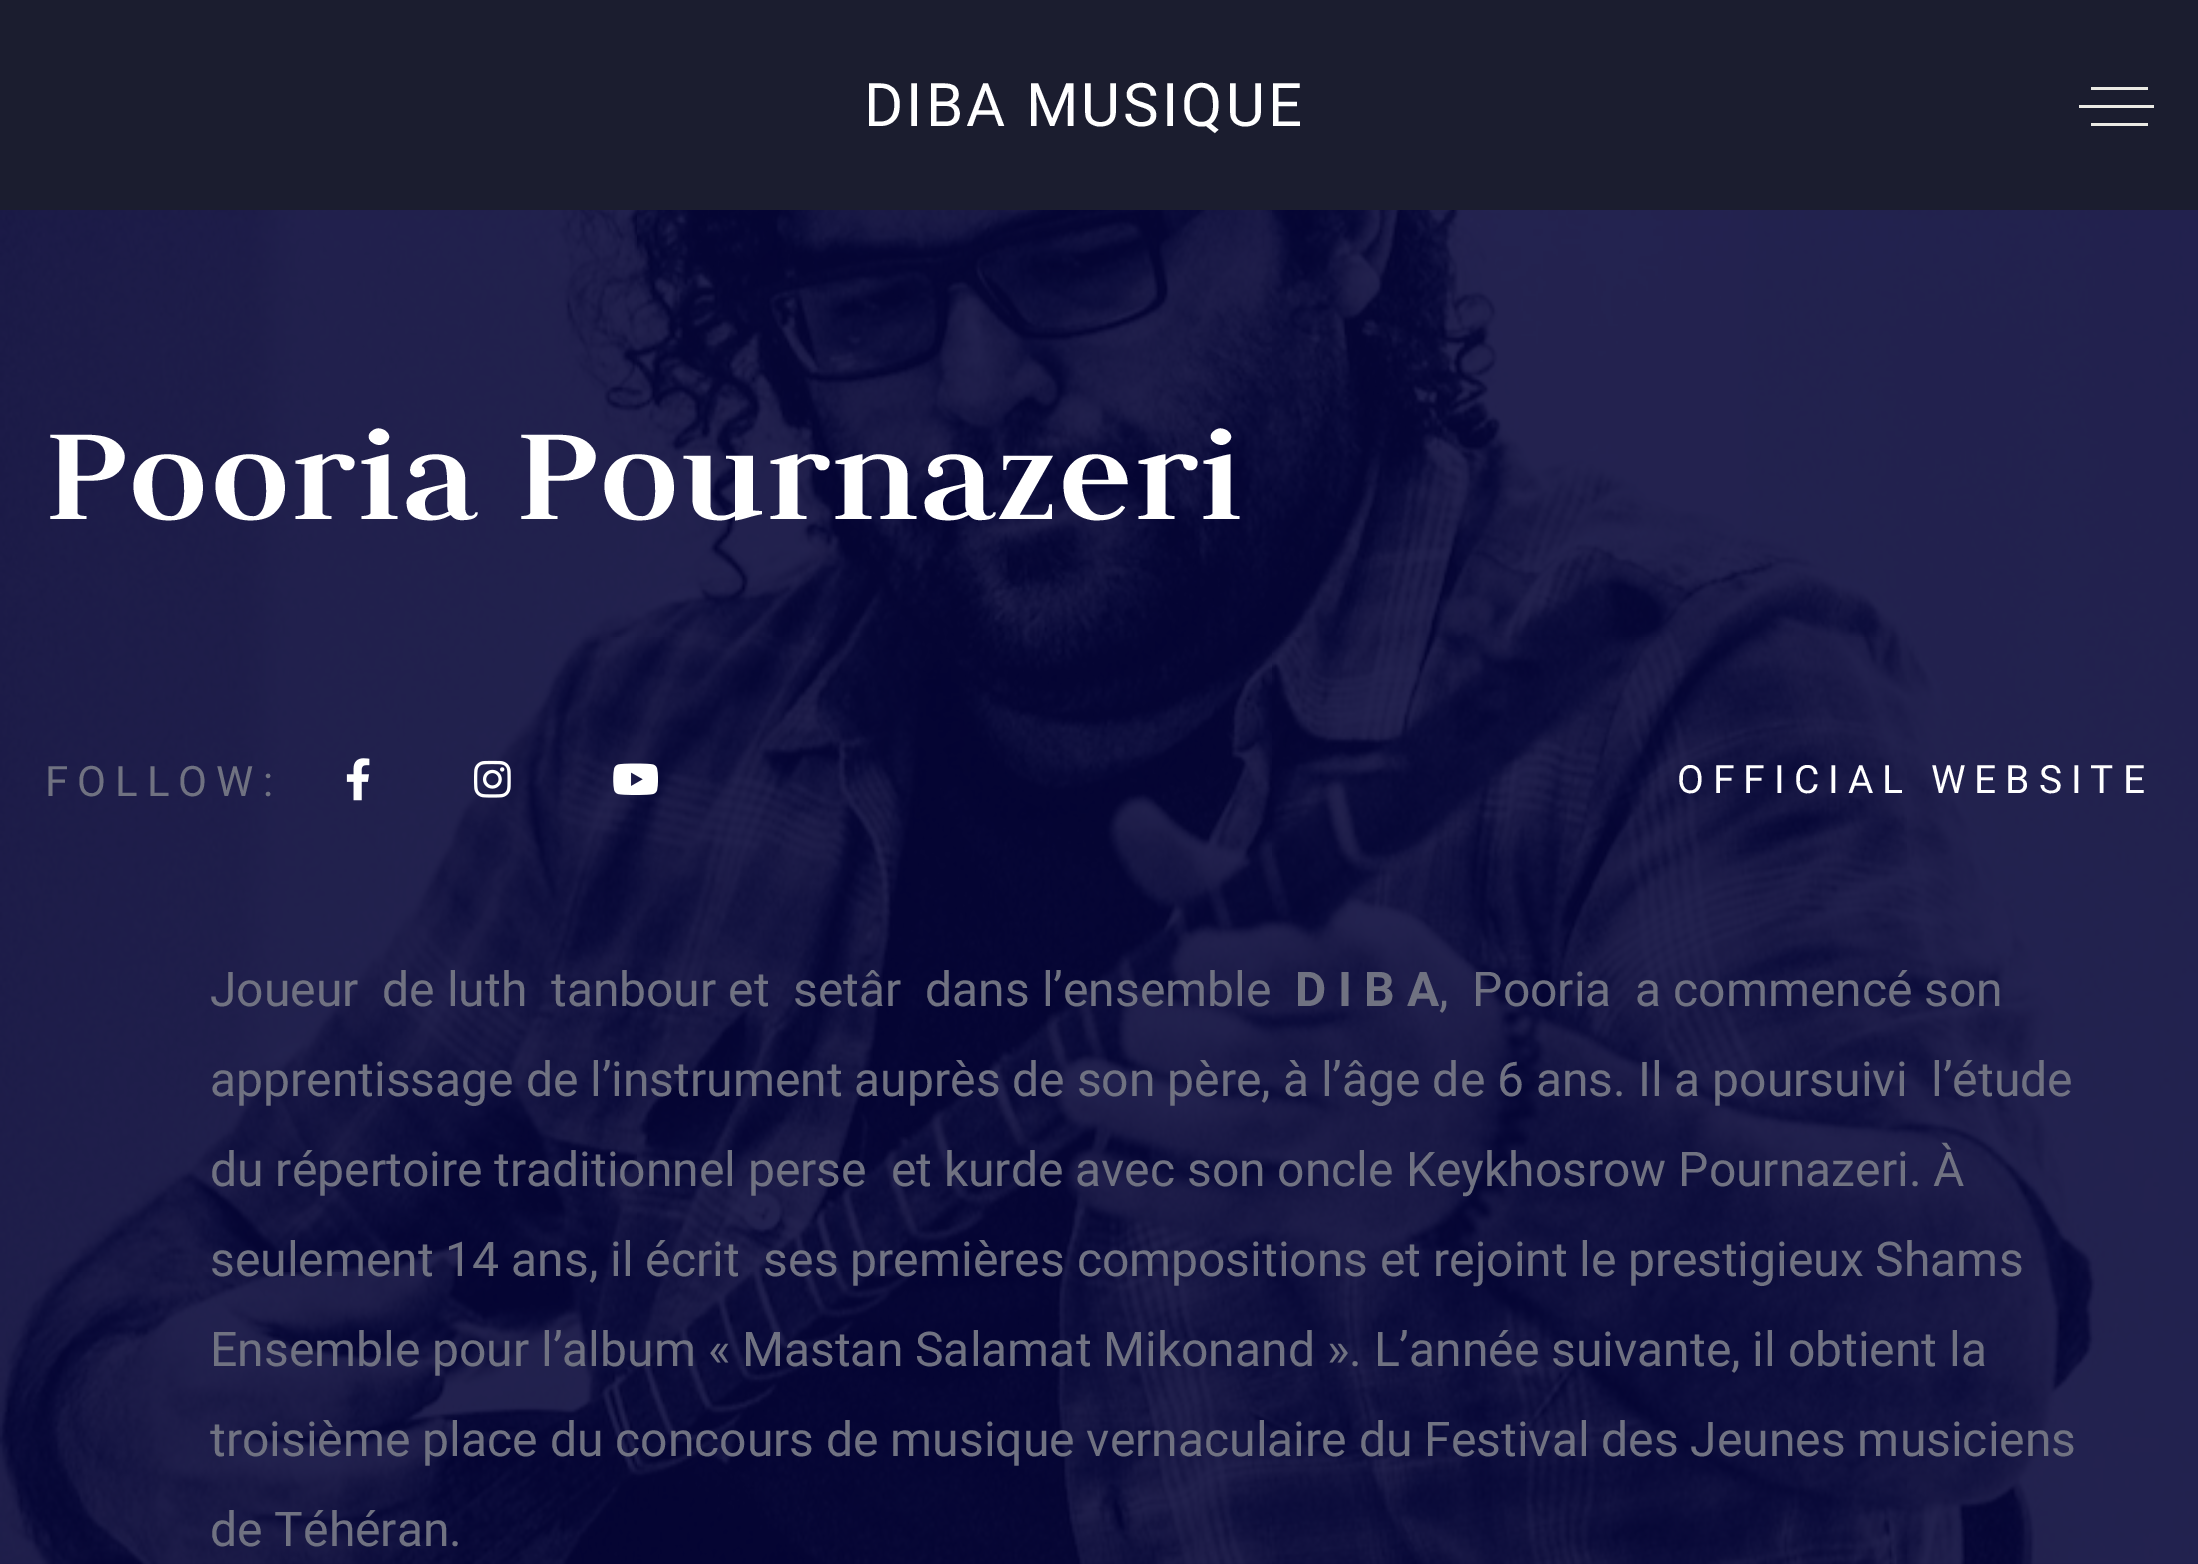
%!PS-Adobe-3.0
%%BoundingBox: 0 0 2198 1564
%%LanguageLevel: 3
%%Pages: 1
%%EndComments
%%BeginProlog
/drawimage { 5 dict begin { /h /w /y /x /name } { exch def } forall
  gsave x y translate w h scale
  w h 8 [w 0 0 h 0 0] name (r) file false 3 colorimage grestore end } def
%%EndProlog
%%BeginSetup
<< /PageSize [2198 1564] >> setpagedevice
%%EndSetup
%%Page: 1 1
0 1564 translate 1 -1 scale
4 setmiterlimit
1 setgray
0 0 2198 1564 rectfill
(images/1.raw) 0 1563 2198 1 drawimage
0.106 0.114 0.184 setrgbcolor
0 0 2198 210 rectfill
0.922 0.918 0.894 setrgbcolor
2091 87 57 3 rectfill
2079 105 75 3 rectfill
2091 123 57 3 rectfill
(images/2.raw) 0 210 2198 1354 drawimage
(images/3.raw) 346 758 24 43 drawimage
(images/4.raw) 474 760 37 38 drawimage
(images/5.raw) 613 763 45 32 drawimage
/Roboto-Regular [60 0 0 -60 0 0] selectfont
1 setgray
864 126 moveto 3 0 (DIBA MUSIQUE) ashow
/Judson-Bold [144 0 0 -144 0 0] selectfont
45 519 moveto 3 0 (Pooria Pournazeri) ashow
/Roboto-Regular [42 0 0 -42 0 0] selectfont
0.439 0.447 0.506 setrgbcolor
45 796 moveto 9 0 (FOLLOW:) ashow
/Roboto-Regular [39 0 0 -39 0 0] selectfont
1 setgray
1677 793 moveto 9 0 (OFFICIAL WEBSITE) ashow
/Roboto-Regular [48 0 0 -48 0 0] selectfont
0.439 0.447 0.506 setrgbcolor
210 1006 moveto (Joueur  de luth  tanbour et  setâr  dans l’ensemble) show
/Roboto-Bold [48 0 0 -48 0 0] selectfont
1295 1006 moveto (D I B A) show
/Roboto-Regular [48 0 0 -48 0 0] selectfont
1439 1006 moveto (,  Pooria  a commencé son) show
210 1096 moveto (apprentissage de l’instrument auprès de son père, à l’âge de 6 ans. Il a poursuivi  l’étude) show
210 1186 moveto (du répertoire traditionnel perse  et kurde avec son oncle Keykhosrow Pournazeri. À) show
210 1276 moveto (seulement 14 ans, il écrit  ses premières compositions et rejoint le prestigieux Shams) show
210 1366 moveto (Ensemble pour l’album « Mastan Salamat Mikonand ». L’année suivante, il obtient la) show
210 1456 moveto (troisième place du concours de musique vernaculaire du Festival des Jeunes musiciens) show
210 1546 moveto (de Téhéran.) show
showpage
%%EOF
